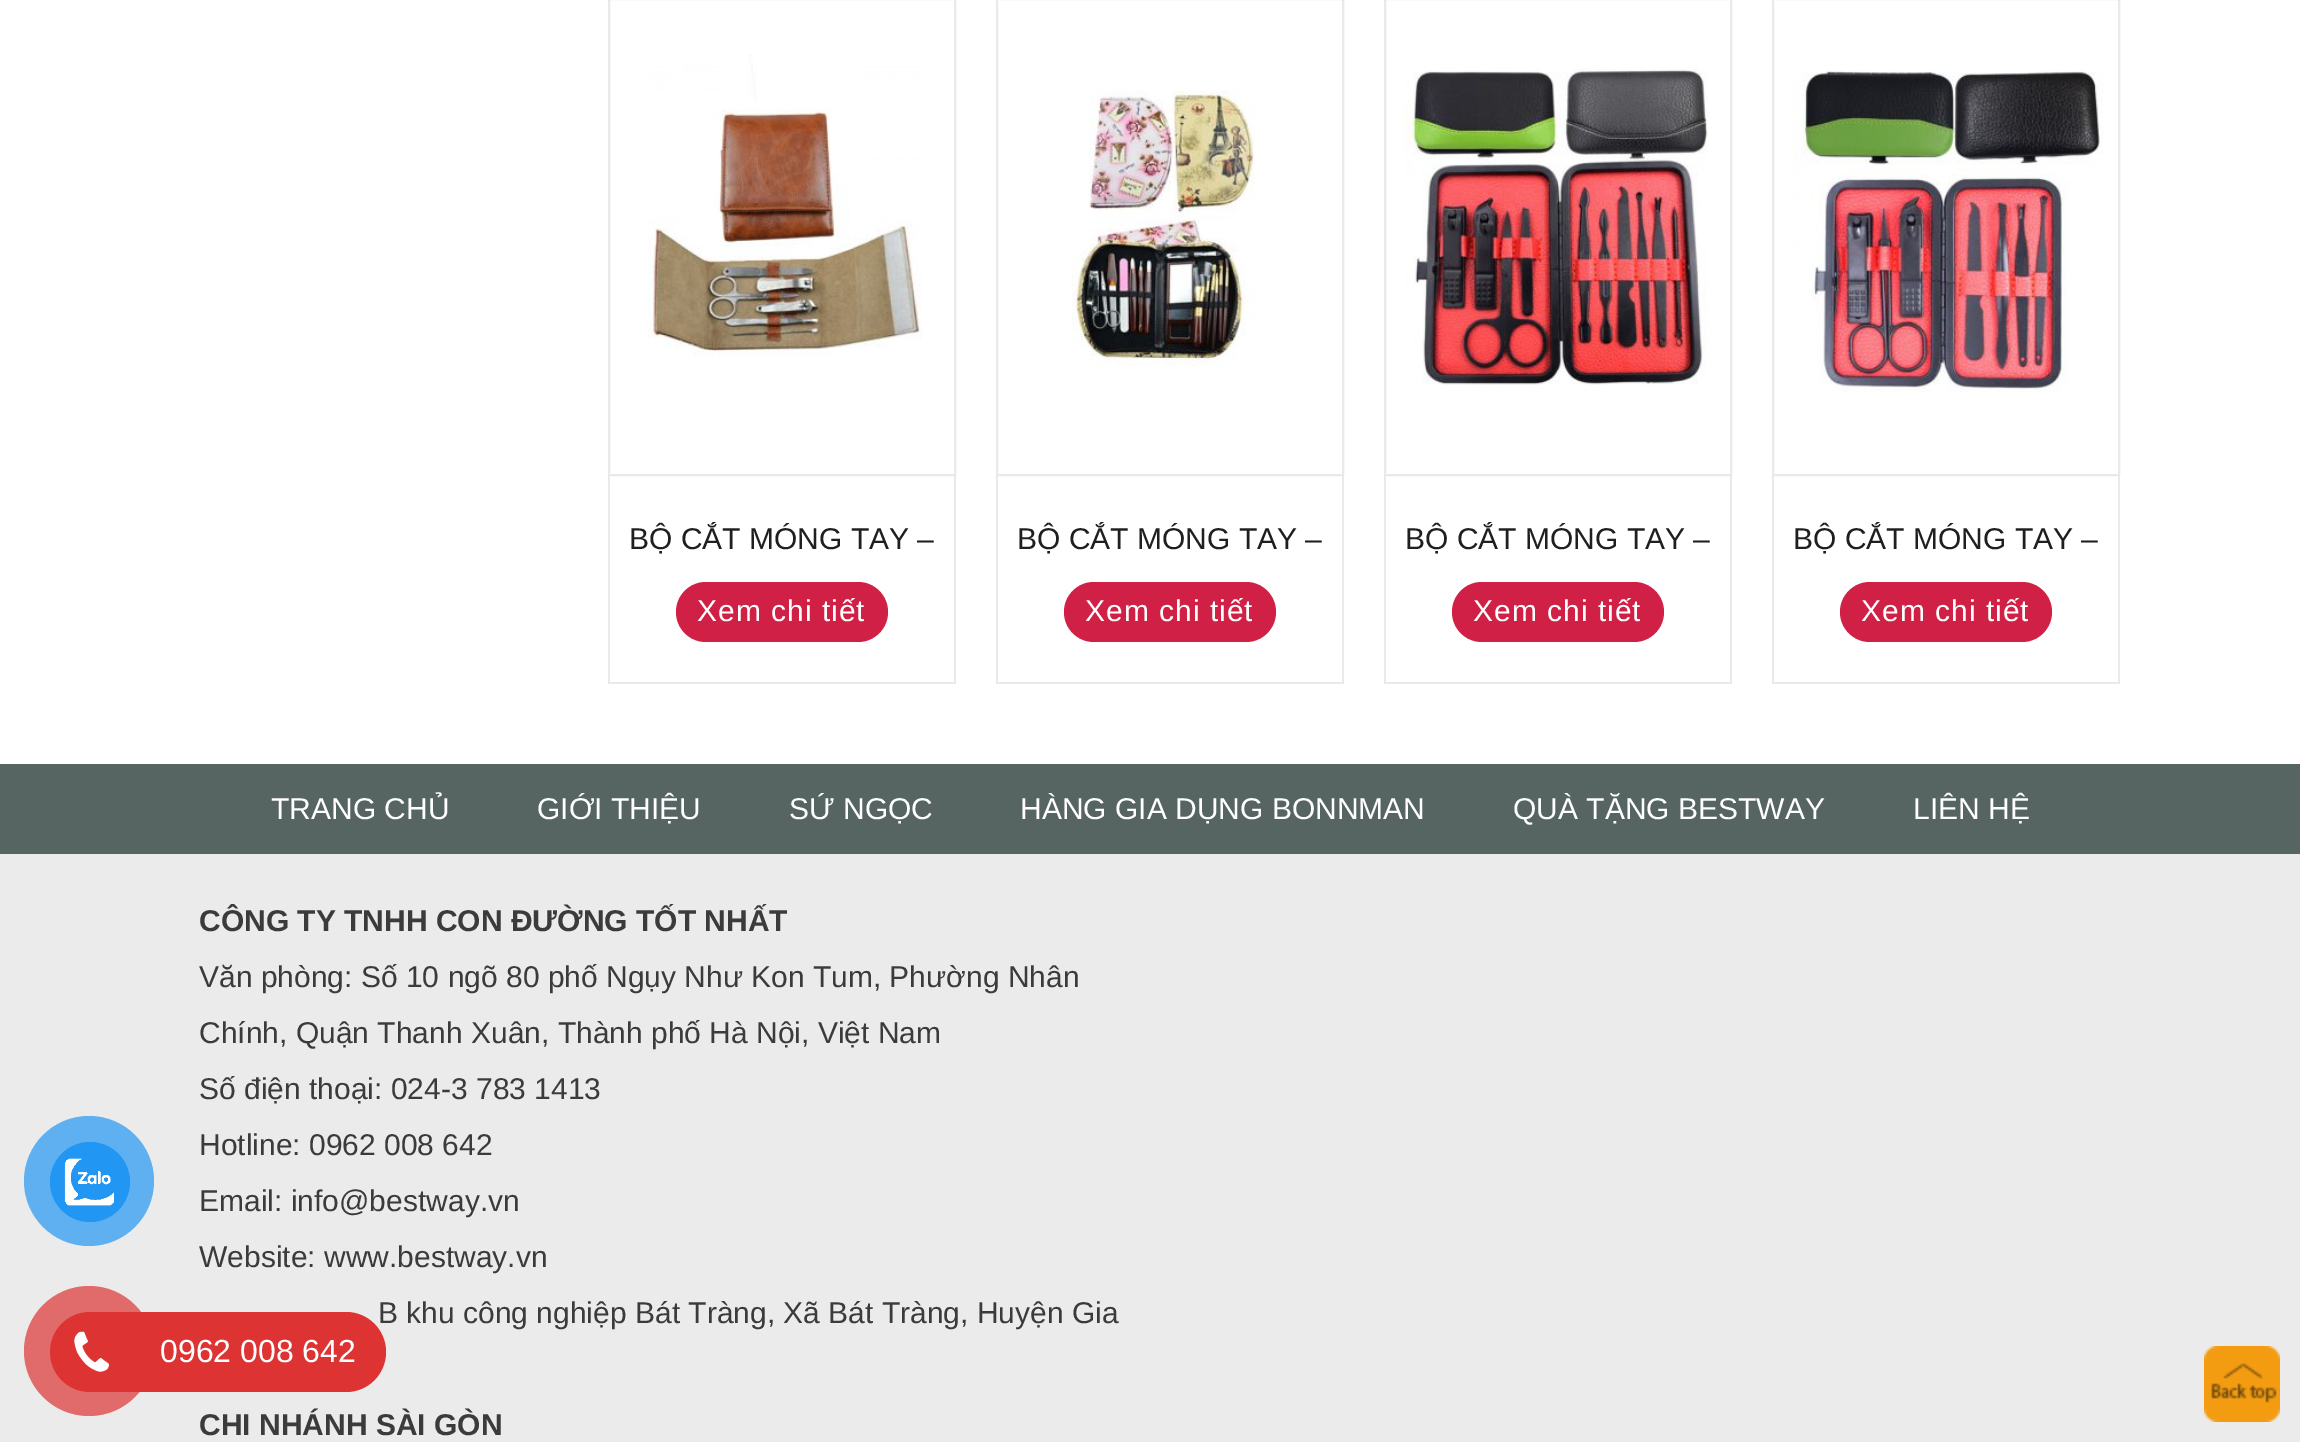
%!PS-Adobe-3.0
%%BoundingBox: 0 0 2300 1442
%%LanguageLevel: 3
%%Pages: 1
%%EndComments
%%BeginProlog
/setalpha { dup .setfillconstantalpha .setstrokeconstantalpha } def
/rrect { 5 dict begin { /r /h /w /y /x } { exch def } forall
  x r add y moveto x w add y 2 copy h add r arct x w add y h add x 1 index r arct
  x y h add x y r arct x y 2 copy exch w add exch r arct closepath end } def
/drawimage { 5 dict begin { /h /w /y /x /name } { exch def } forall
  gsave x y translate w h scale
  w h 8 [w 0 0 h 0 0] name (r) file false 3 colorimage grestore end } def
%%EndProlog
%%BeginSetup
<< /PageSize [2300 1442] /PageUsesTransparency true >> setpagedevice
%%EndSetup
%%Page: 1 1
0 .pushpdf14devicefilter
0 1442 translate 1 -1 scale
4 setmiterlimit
1 setgray
0 0 2300 1442 rectfill
0.914 setgray
2 setlinewidth
609 -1 346 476 rectstroke
(images/1.raw) 647 54 275 303 drawimage
954 476 2 208 rectfill
608 682 348 2 rectfill
608 476 2 208 rectfill
0.82 0.125 0.275 setrgbcolor
676 582 212 60 30 rrect fill
0.914 setgray
997 -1 346 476 rectstroke
(images/2.raw) 1071 90 184 276 drawimage
1342 476 2 208 rectfill
996 682 348 2 rectfill
996 476 2 208 rectfill
0.82 0.125 0.275 setrgbcolor
1064 582 212 60 30 rrect fill
0.914 setgray
1385 -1 346 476 rectstroke
(images/3.raw) 1404 67 304 318 drawimage
1730 476 2 208 rectfill
1384 682 348 2 rectfill
1384 476 2 208 rectfill
0.82 0.125 0.275 setrgbcolor
1452 582 212 60 30 rrect fill
0.914 setgray
1773 -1 346 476 rectstroke
(images/4.raw) 1793 70 310 323 drawimage
2118 476 2 208 rectfill
1772 682 348 2 rectfill
1772 476 2 208 rectfill
0.82 0.125 0.275 setrgbcolor
1840 582 212 60 30 rrect fill
0.337 0.396 0.384 setrgbcolor
0 764 2300 90 rectfill
0.922 setgray
0 854 2300 588 rectfill
(images/5.raw) 2204 1346 76 76 drawimage
0.369 0.69 0.945 setrgbcolor
newpath 89 1181 65 0 360 arc closepath fill
0.129 0.588 0.953 setrgbcolor
newpath 90 1182 40 0 360 arc closepath fill
(images/6.raw) 64 1158 50 48 drawimage
/Arimo-Regular [30 0 0 -30 0 0] selectfont
0.125 0.118 0.122 setrgbcolor
629 549 moveto (BỘ CẮT MÓNG TAY –) show
1 setgray
697 621 moveto 1 0 (Xem chi tiết) ashow
0.125 0.118 0.122 setrgbcolor
1017 549 moveto (BỘ CẮT MÓNG TAY –) show
1 setgray
1085 621 moveto 1 0 (Xem chi tiết) ashow
0.125 0.118 0.122 setrgbcolor
1405 549 moveto (BỘ CẮT MÓNG TAY –) show
1 setgray
1473 621 moveto 1 0 (Xem chi tiết) ashow
0.125 0.118 0.122 setrgbcolor
1793 549 moveto (BỘ CẮT MÓNG TAY –) show
1 setgray
1861 621 moveto 1 0 (Xem chi tiết) ashow
271 819 moveto (TRANG CHỦ) show
537 819 moveto (GIỚI THIỆU) show
789 819 moveto (SỨ NGỌC) show
1020 819 moveto (HÀNG GIA DỤNG BONNMAN) show
1513 819 moveto (QUÀ TẶNG BESTWAY) show
1913 819 moveto (LIÊN HỆ) show
/Arimo-Bold [30 0 0 -30 0 0] selectfont
0.231 setgray
199 931 moveto (CÔNG TY TNHH CON ĐƯỜNG TỐT NHẤT) show
/Arimo-Regular [30 0 0 -30 0 0] selectfont
199 987 moveto (Văn phòng: Số 10 ngõ 80 phố Ngụy Như Kon Tum, Phường Nhân) show
199 1043 moveto (Chính, Quận Thanh Xuân, Thành phố Hà Nội, Việt Nam) show
199 1099 moveto (Số điện thoại: 024-3 783 1413) show
199 1155 moveto (Hotline: 0962 008 642) show
199 1211 moveto (Email: info@bestway.vn) show
199 1267 moveto (Website: www.bestway.vn) show
378 1323 moveto (B khu công nghiệp Bát Tràng, Xã Bát Tràng, Huyện Gia) show
/Arimo-Bold [30 0 0 -30 0 0] selectfont
199 1435 moveto (CHI NHÁNH SÀI GÒN) show
0.867 0.2 0.2 setrgbcolor
60 1312 326 80 40 rrect fill
0.7 setalpha
newpath 89 1351 65 0 360 arc closepath fill
1 setalpha
newpath 90 1352 40 0 360 arc closepath fill
(images/7.raw) 74 1331 35 41 drawimage
/Arimo-Regular [32 0 0 -32 0 0] selectfont
1 setgray
160 1362 moveto (0962 008 642) show
.poppdf14devicefilter showpage
%%EOF
